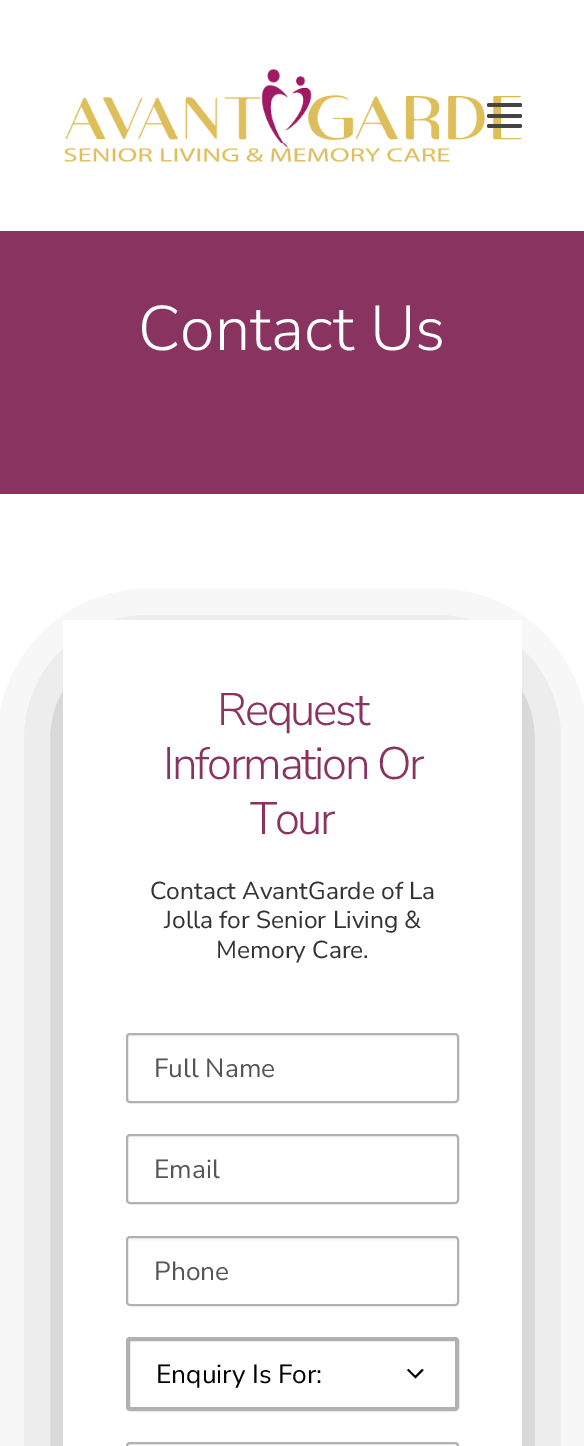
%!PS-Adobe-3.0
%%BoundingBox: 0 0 584 1446
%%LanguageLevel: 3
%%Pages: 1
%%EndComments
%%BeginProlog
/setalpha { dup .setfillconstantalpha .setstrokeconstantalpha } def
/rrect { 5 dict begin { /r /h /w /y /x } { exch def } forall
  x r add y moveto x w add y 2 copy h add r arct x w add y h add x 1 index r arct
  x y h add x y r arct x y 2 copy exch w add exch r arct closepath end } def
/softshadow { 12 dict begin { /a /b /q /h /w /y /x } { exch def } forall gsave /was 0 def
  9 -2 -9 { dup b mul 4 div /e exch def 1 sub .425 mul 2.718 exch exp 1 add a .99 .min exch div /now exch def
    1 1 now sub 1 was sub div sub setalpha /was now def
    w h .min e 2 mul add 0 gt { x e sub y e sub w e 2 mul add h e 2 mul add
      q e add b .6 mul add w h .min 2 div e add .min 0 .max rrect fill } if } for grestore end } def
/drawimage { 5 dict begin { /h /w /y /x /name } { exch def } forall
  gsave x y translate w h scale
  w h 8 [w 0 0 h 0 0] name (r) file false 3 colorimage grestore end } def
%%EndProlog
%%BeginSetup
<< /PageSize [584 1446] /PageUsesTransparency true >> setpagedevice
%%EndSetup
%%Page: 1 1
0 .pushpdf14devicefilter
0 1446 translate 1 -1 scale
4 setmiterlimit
1 setgray
0 0 584 1446 rectfill
(images/1.raw) 64 69 458 93 drawimage
0.267 setgray
487 114 35 4 2 rrect fill
487 103 35 4 2 rrect fill
487 124 35 4 2 rrect fill
0.537 0.2 0.376 setrgbcolor
0 231 584 263 rectfill
0 setgray
116 707 353 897 0 52.5 1 softshadow
1 setgray
63 620 459 826 rectfill
0.976 setgray
newpath 130 1038 moveto 455 1038 lineto 456 1038 457 1039 457 1040 curveto 457 1038 458 1034 455 1034 curveto 130 1034 lineto 127 1034 128 1038 128 1040 curveto 128 1039 129 1038 130 1038 curveto closepath fill
0.694 setgray
2 setlinewidth
127 1034 331 68 3 rrect stroke
0.976 setgray
newpath 130 1139 moveto 455 1139 lineto 456 1139 457 1140 457 1141 curveto 457 1138 lineto 457 1137 456 1136 455 1136 curveto 130 1136 lineto 129 1136 128 1137 128 1138 curveto 128 1141 lineto 128 1140 129 1139 130 1139 curveto closepath fill
0.694 setgray
127 1135 331 68 3 rrect stroke
0.976 setgray
newpath 130 1241 moveto 455 1241 lineto 457 1242 lineto 457 1239 lineto 457 1238 456 1237 455 1237 curveto 130 1237 lineto 129 1237 128 1238 128 1239 curveto 128 1242 lineto closepath fill
0.694 setgray
127 1237 331 68 3 rrect stroke
(images/2.raw) 407 1368 17 11 drawimage
4 setlinewidth
128 1339 329 70 2 rrect stroke
0.976 setgray
newpath 130 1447 moveto 455 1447 lineto 456 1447 457 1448 457 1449 curveto 457 1446 lineto 457 1445 456 1444 455 1444 curveto 130 1444 lineto 129 1444 128 1445 128 1446 curveto 128 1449 lineto 128 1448 129 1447 130 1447 curveto closepath fill
0.694 setgray
2 setlinewidth
127 1443 331 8 3 rrect stroke
/NunitoSans-Light [63 0 0 -63 0 0] selectfont
1 setgray
138 350 moveto (Contact Us) show
/NunitoSans-Light [45.5 0 0 -45.5 0 0] selectfont
0.537 0.2 0.376 setrgbcolor
217 725 moveto -2.25 0 (Request) ashow
163 779 moveto -2.25 0 (Information Or) ashow
250 834 moveto -2.25 0 (Tour) ashow
/NunitoSans-Regular [24.5 0 0 -24.5 0 0] selectfont
0.2 setgray
150 899 moveto (Contact AvantGarde of La) show
164 928 moveto (Jolla for Senior Living &) show
216 958 moveto (Memory Care.) show
/NunitoSans-Regular [26.25 0 0 -26.25 0 0] selectfont
0.333 setgray
154 1077 moveto (Full Name) show
154 1178 moveto (Email) show
154 1280 moveto (Phone) show
0 setgray
156 1383 moveto (Enquiry Is For:) show
.poppdf14devicefilter showpage
%%EOF
